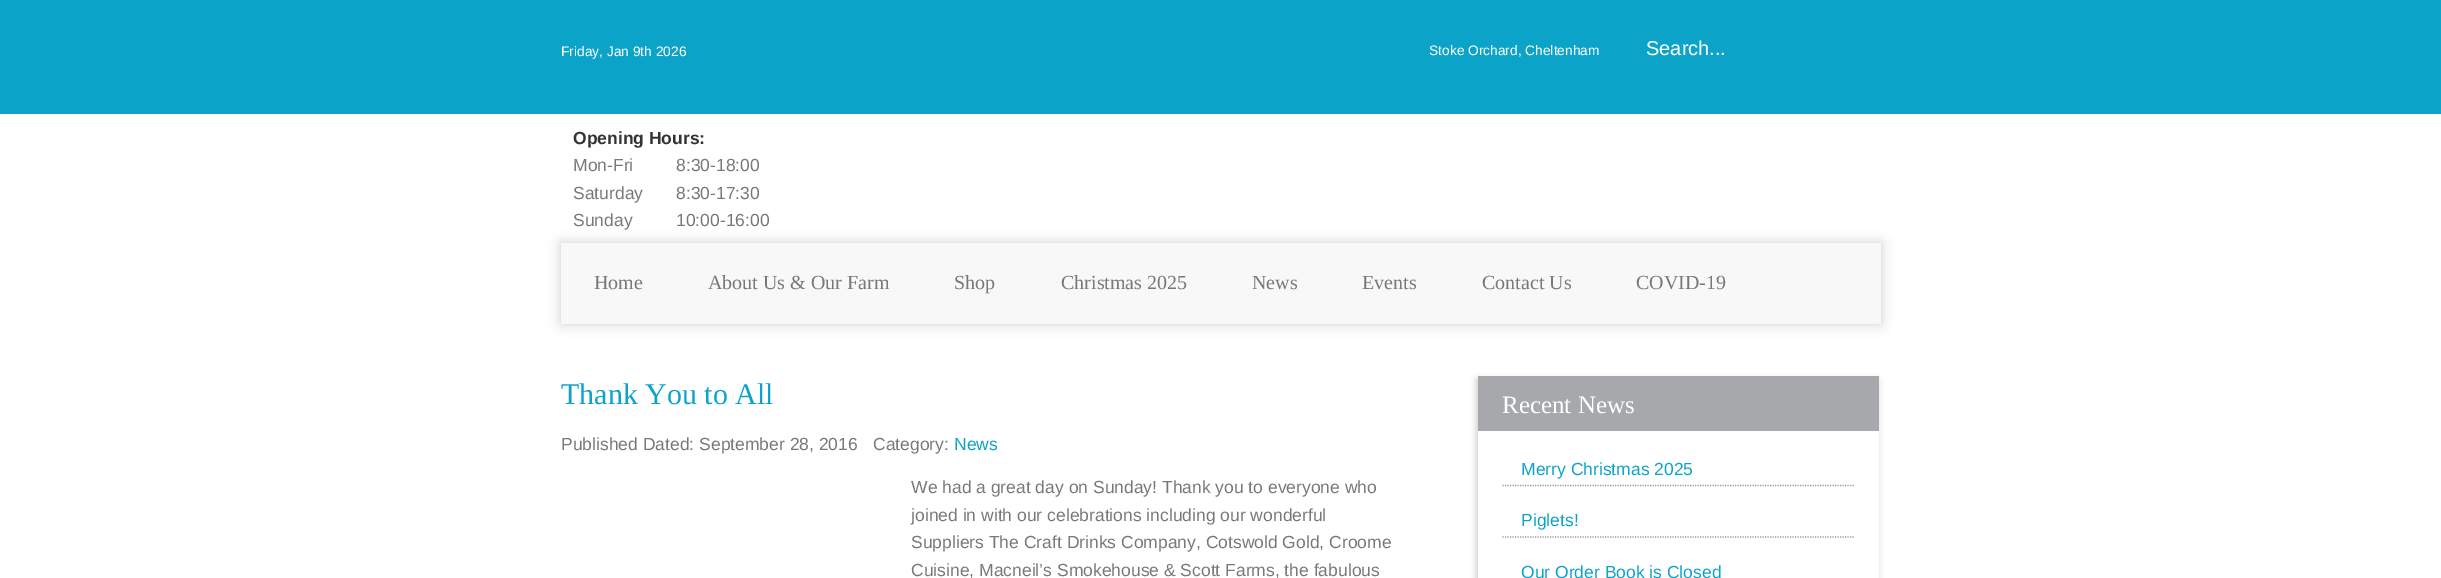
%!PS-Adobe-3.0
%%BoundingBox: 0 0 2441 578
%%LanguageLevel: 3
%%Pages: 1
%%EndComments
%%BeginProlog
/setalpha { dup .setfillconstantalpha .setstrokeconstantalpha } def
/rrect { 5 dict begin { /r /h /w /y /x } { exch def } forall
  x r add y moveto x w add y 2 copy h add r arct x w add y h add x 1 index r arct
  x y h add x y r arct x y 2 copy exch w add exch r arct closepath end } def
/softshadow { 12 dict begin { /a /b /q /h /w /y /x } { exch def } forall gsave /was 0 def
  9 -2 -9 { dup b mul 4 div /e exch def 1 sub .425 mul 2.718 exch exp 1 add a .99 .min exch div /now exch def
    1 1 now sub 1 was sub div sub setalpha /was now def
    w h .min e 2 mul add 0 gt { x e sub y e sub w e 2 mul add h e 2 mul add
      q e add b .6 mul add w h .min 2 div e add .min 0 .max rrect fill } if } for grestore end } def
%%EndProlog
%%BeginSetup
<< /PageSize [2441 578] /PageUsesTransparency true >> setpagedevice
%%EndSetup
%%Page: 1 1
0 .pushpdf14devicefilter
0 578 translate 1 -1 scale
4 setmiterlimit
1 setgray
0 0 2441 578 rectfill
0.047 0.639 0.784 setrgbcolor
0 0 2441 114 rectfill
0.8 setgray
561 243 1320 81 0 6 1 softshadow
0.973 setgray
561 243 1320 81 rectfill
0.8 setgray
1476 379 402 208 0 3 1 softshadow
1 setgray
1478 431 401 147 rectfill
0.651 0.659 0.671 setrgbcolor
1478 376 401 55 rectfill
0.6 setgray
1.2 setlinewidth
[1.25 1.25] 0 setdash
newpath 1502.5 485.5 moveto 1854 485.5 lineto stroke
newpath 1502.5 537 moveto 1854 537 lineto stroke
/LiberationSans-Regular [13.75 0 0 -13.75 0 0] selectfont
1 setgray
561 56 moveto (Friday, Jan 9th 2026) show
1429 55 moveto (Stoke Orchard, Cheltenham) show
/LiberationSans-Regular [20 0 0 -20 0 0] selectfont
1646 55 moveto (Search...) show
/LiberationSans-Bold [17.5 0 0 -17.5 0 0] selectfont
0.2 setgray
573 144 moveto (Opening Hours:) show
/LiberationSans-Regular [17.5 0 0 -17.5 0 0] selectfont
0.471 setgray
573 171 moveto (Mon-Fri) show
676 171 moveto (8:30-18:00) show
573 199 moveto (Saturday) show
676 199 moveto (8:30-17:30) show
573 226 moveto (Sunday) show
676 226 moveto (10:00-16:00) show
/LiberationSerif-Regular [20 0 0 -20 0 0] selectfont
594 289 moveto (Home) show
708 289 moveto (About Us & Our Farm) show
954 289 moveto (Shop) show
1061 289 moveto (Christmas 2025) show
1252 289 moveto (News) show
1362 289 moveto (Events) show
1482 289 moveto (Contact Us) show
1636 289 moveto (COVID-19) show
/LiberationSerif-Regular [30 0 0 -30 0 0] selectfont
0.047 0.639 0.784 setrgbcolor
561 404 moveto (Thank You to All) show
/LiberationSans-Regular [17.5 0 0 -17.5 0 0] selectfont
0.471 setgray
561 450 moveto (Published Dated: September 28, 2016) show
873 450 moveto (Category:) show
0.047 0.639 0.784 setrgbcolor
954 450 moveto (News) show
0.471 setgray
911 493 moveto (We had a great day on Sunday! Thank you to everyone who) show
911 521 moveto (joined in with our celebrations including our wonderful) show
911 548 moveto (Suppliers The Craft Drinks Company, Cotswold Gold, Croome) show
911 576 moveto (Cuisine, Macneil’s Smokehouse & Scott Farms, the fabulous) show
/LiberationSerif-Regular [25 0 0 -25 0 0] selectfont
1 setgray
1502 413 moveto (Recent News) show
/LiberationSans-Regular [17.5 0 0 -17.5 0 0] selectfont
0.047 0.639 0.784 setrgbcolor
1521 475 moveto (Merry Christmas 2025) show
1521 526 moveto (Piglets!) show
1521 578 moveto (Our Order Book is Closed) show
.poppdf14devicefilter showpage
%%EOF
